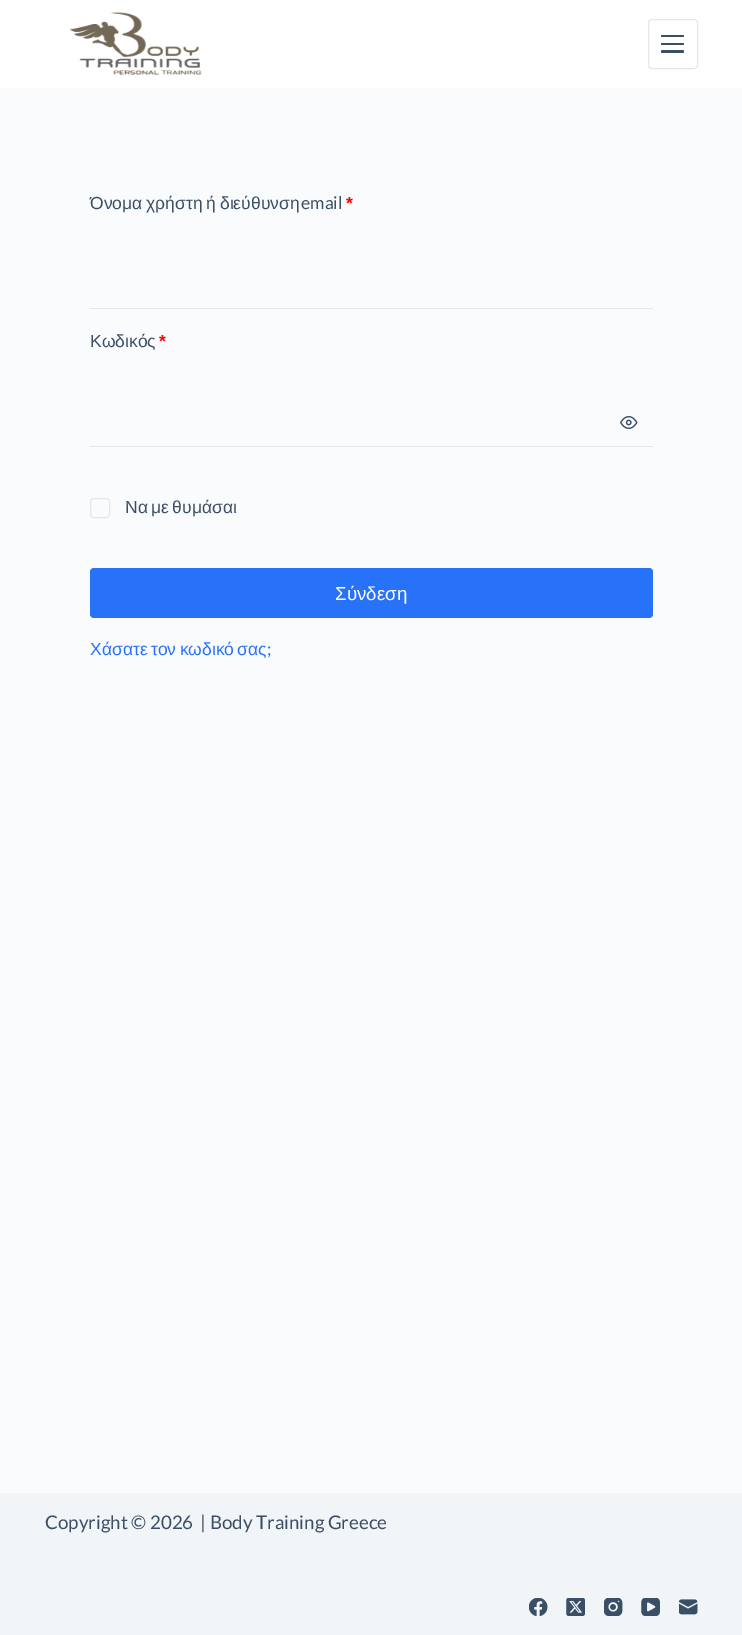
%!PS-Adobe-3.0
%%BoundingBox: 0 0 742 1635
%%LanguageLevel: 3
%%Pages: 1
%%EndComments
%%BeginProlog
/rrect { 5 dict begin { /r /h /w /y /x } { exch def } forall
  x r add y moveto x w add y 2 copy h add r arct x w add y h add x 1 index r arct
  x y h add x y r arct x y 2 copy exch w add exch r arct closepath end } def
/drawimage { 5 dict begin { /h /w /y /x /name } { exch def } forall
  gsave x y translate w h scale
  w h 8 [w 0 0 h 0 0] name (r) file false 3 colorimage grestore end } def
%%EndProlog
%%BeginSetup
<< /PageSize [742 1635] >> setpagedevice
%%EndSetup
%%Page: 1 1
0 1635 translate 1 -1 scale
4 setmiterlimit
0.98 0.984 0.988 setrgbcolor
0 0 742 1635 rectfill
1 setgray
0 0 742 88 rectfill
(images/1.raw) 69 12 133 63 drawimage
0.89 0.91 0.929 setrgbcolor
648.5 19.5 49 49 3.5 rrect stroke
0.227 0.31 0.4 setrgbcolor
661 35 23 2 1 rrect fill
661 43 23 2 1 rrect fill
661 50 23 3 1.5 rrect fill
0.882 0.91 0.929 setrgbcolor
90 308 563 1 rectfill
(images/2.raw) 620 415 18 15 drawimage
90 446 563 1 rectfill
90.5 498.5 19 19 3.5 rrect stroke
0.157 0.447 0.98 setrgbcolor
90 568 563 50 4 rrect fill
0.949 0.961 0.969 setrgbcolor
0 1493 742 142 rectfill
(images/3.raw) 529 1598 19 18 drawimage
(images/4.raw) 566 1598 19 18 drawimage
(images/5.raw) 604 1598 19 18 drawimage
(images/6.raw) 641 1598 19 18 drawimage
(images/7.raw) 679 1599 19 16 drawimage
/LiberationSans-Regular [17.5 0 0 -17.5 0 0] selectfont
0.227 0.31 0.4 setrgbcolor
90 209 moveto -1 0 32 (Όνομα χρήστη ή διεύθυνση) widthshow
/Lato-Regular [17.5 0 0 -17.5 0 0] selectfont
301 209 moveto (email) show
/LiberationSans-Bold [17.5 0 0 -17.5 0 0] selectfont
1 0 0 setrgbcolor
346 209 moveto (*) show
/LiberationSans-Regular [17.5 0 0 -17.5 0 0] selectfont
0.227 0.31 0.4 setrgbcolor
90 347 moveto (Κωδικός) show
/LiberationSans-Bold [17.5 0 0 -17.5 0 0] selectfont
1 0 0 setrgbcolor
159 347 moveto (*) show
/LiberationSans-Regular [17.5 0 0 -17.5 0 0] selectfont
0.227 0.31 0.4 setrgbcolor
125 513 moveto -1.5 0 32 (Να με θυμάσαι) widthshow
/LiberationSans-Regular [18.75 0 0 -18.75 0 0] selectfont
1 setgray
335 600 moveto (Σύνδεση) show
/LiberationSans-Regular [17.5 0 0 -17.5 0 0] selectfont
0.157 0.447 0.98 setrgbcolor
90 655 moveto -1.5 0 32 (Χάσατε τον κωδικό σας) widthshow
/Lato-Regular [17.5 0 0 -17.5 0 0] selectfont
267 655 moveto (;) show
/Lato-Regular [18.75 0 0 -18.75 0 0] selectfont
0.227 0.31 0.4 setrgbcolor
45 1529 moveto (Copyright © 2026  | Body Training Greece) show
showpage
%%EOF
